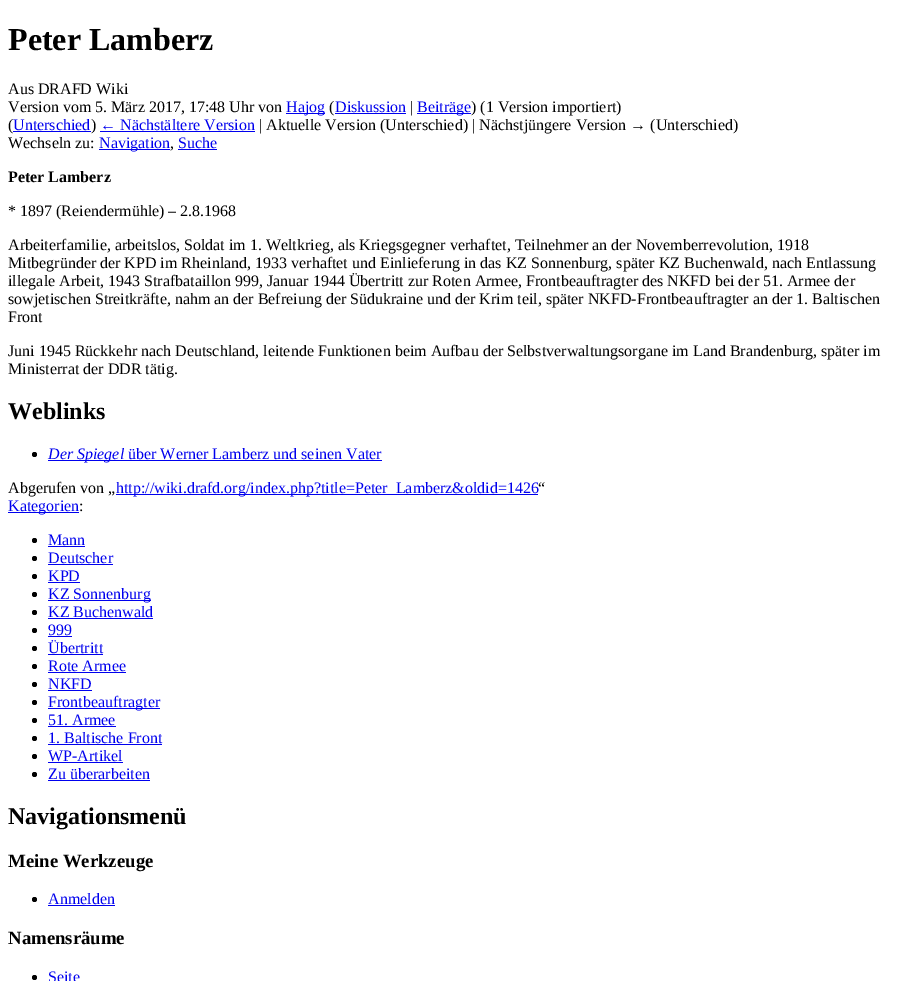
%!PS-Adobe-3.0
%%BoundingBox: 0 0 897 981
%%LanguageLevel: 3
%%Pages: 1
%%EndComments
%%BeginProlog
%%EndProlog
%%BeginSetup
<< /PageSize [897 981] >> setpagedevice
%%EndSetup
%%Page: 1 1
0 981 translate 1 -1 scale
4 setmiterlimit
1 setgray
0 0 897 981 rectfill
0 0 0.933 setrgbcolor
286 113 39 1 rectfill
335 113 71 1 rectfill
417 113 54 1 rectfill
13 131 78 1 rectfill
100 131 155 1 rectfill
99 149 71 1 rectfill
178 149 39 1 rectfill
0 setgray
newpath 34.5 454.5 2.5 0 360 arc closepath fill
0 0 0.933 setrgbcolor
48 460 334 1 rectfill
116 494 422 1 rectfill
8 512 71 1 rectfill
0 setgray
newpath 34.5 540.5 2.5 0 360 arc closepath fill
0 0 0.933 setrgbcolor
48 546 37 1 rectfill
0 setgray
newpath 34.5 558.5 2.5 0 360 arc closepath fill
0 0 0.933 setrgbcolor
48 564 65 1 rectfill
0 setgray
newpath 34.5 576.5 2.5 0 360 arc closepath fill
0 0 0.933 setrgbcolor
48 582 32 1 rectfill
0 setgray
newpath 34.5 594.5 2.5 0 360 arc closepath fill
0 0 0.933 setrgbcolor
48 600 103 1 rectfill
0 setgray
newpath 34.5 612.5 2.5 0 360 arc closepath fill
0 0 0.933 setrgbcolor
48 618 105 1 rectfill
0 setgray
newpath 34.5 630.5 2.5 0 360 arc closepath fill
0 0 0.933 setrgbcolor
48 636 24 1 rectfill
0 setgray
newpath 34.5 648.5 2.5 0 360 arc closepath fill
0 0 0.933 setrgbcolor
48 654 55 1 rectfill
0 setgray
newpath 34.5 666.5 2.5 0 360 arc closepath fill
0 0 0.933 setrgbcolor
48 672 78 1 rectfill
0 setgray
newpath 34.5 684.5 2.5 0 360 arc closepath fill
0 0 0.933 setrgbcolor
48 690 44 1 rectfill
0 setgray
newpath 34.5 702.5 2.5 0 360 arc closepath fill
0 0 0.933 setrgbcolor
48 708 112 1 rectfill
0 setgray
newpath 34.5 720.5 2.5 0 360 arc closepath fill
0 0 0.933 setrgbcolor
48 726 68 1 rectfill
0 setgray
newpath 34.5 738.5 2.5 0 360 arc closepath fill
0 0 0.933 setrgbcolor
48 744 114 1 rectfill
0 setgray
newpath 34.5 756.5 2.5 0 360 arc closepath fill
0 0 0.933 setrgbcolor
48 762 75 1 rectfill
0 setgray
newpath 34.5 774.5 2.5 0 360 arc closepath fill
0 0 0.933 setrgbcolor
48 780 102 1 rectfill
0 setgray
newpath 34.5 899.5 2.5 0 360 arc closepath fill
0 0 0.933 setrgbcolor
48 905 67 1 rectfill
0 setgray
newpath 34.5 977.5 2.5 0 360 arc closepath fill
/LiberationSerif-Bold [32 0 0 -32 0 0] selectfont
8 50 moveto (Peter Lamberz) show
/LiberationSerif-Regular [16 0 0 -16 0 0] selectfont
8 94 moveto (Aus DRAFD Wiki) show
8 112 moveto (Version vom 5. März 2017, 17:48 Uhr von) show
0 0 0.933 setrgbcolor
286 112 moveto (Hajog) show
0 setgray
329 112 moveto (\() show
0 0 0.933 setrgbcolor
335 112 moveto (Diskussion) show
0 setgray
410 112 moveto (|) show
0 0 0.933 setrgbcolor
417 112 moveto (Beiträge) show
0 setgray
471 112 moveto (\) \(1 Version importiert\)) show
8 130 moveto (\() show
0 0 0.933 setrgbcolor
13 130 moveto (Unterschied) show
0 setgray
91 130 moveto (\)) show
0 0 0.933 setrgbcolor
100 130 moveto (← Nächstältere Version) show
0 setgray
259 130 moveto (| Aktuelle Version \(Unterschied\) | Nächstjüngere Version → \(Unterschied\)) show
8 148 moveto (Wechseln zu:) show
0 0 0.933 setrgbcolor
99 148 moveto (Navigation) show
0 setgray
170 148 moveto (,) show
0 0 0.933 setrgbcolor
178 148 moveto (Suche) show
/LiberationSerif-Bold [16 0 0 -16 0 0] selectfont
0 setgray
8 182 moveto (Peter Lamberz) show
/LiberationSerif-Regular [16 0 0 -16 0 0] selectfont
8 216 moveto (* 1897 \(Reiendermühle\) – 2.8.1968) show
8 250 moveto (Arbeiterfamilie, arbeitslos, Soldat im 1. Weltkrieg, als Kriegsgegner verhaftet, Teilnehmer an der Novemberrevolution, 1918) show
8 268 moveto (Mitbegründer der KPD im Rheinland, 1933 verhaftet und Einlieferung in das KZ Sonnenburg, später KZ Buchenwald, nach Entlassung) show
8 286 moveto (illegale Arbeit, 1943 Strafbataillon 999, Januar 1944 Übertritt zur Roten Armee, Frontbeauftragter des NKFD bei der 51. Armee der) show
8 304 moveto (sowjetischen Streitkräfte, nahm an der Befreiung der Südukraine und der Krim teil, später NKFD-Frontbeauftragter an der 1. Baltischen) show
8 322 moveto (Front) show
8 356 moveto (Juni 1945 Rückkehr nach Deutschland, leitende Funktionen beim Aufbau der Selbstverwaltungsorgane im Land Brandenburg, später im) show
8 374 moveto (Ministerrat der DDR tätig.) show
/LiberationSerif-Bold [24 0 0 -24 0 0] selectfont
8 419 moveto (Weblinks) show
/LiberationSerif-Italic [16 0 0 -16 0 0] selectfont
0 0 0.933 setrgbcolor
48 459 moveto (Der Spiegel) show
/LiberationSerif-Regular [16 0 0 -16 0 0] selectfont
128 459 moveto (über Werner Lamberz und seinen Vater) show
0 setgray
8 493 moveto (Abgerufen von „) show
0 0 0.933 setrgbcolor
116 493 moveto (http://wiki.drafd.org/index.php?title=Peter_Lamberz&oldid=1426) show
0 setgray
538 493 moveto (“) show
0 0 0.933 setrgbcolor
8 511 moveto (Kategorien) show
0 setgray
79 511 moveto (:) show
0 0 0.933 setrgbcolor
48 545 moveto (Mann) show
48 563 moveto (Deutscher) show
48 581 moveto (KPD) show
48 599 moveto (KZ Sonnenburg) show
48 617 moveto (KZ Buchenwald) show
48 635 moveto (999) show
48 653 moveto (Übertritt) show
48 671 moveto (Rote Armee) show
48 689 moveto (NKFD) show
48 707 moveto (Frontbeauftragter) show
48 725 moveto (51. Armee) show
48 743 moveto (1. Baltische Front) show
48 761 moveto (WP-Artikel) show
48 779 moveto (Zu überarbeiten) show
/LiberationSerif-Bold [24 0 0 -24 0 0] selectfont
0 setgray
8 824 moveto (Navigationsmenü) show
/LiberationSerif-Bold [18.75 0 0 -18.75 0 0] selectfont
8 867 moveto (Meine Werkzeuge) show
/LiberationSerif-Regular [16 0 0 -16 0 0] selectfont
0 0 0.933 setrgbcolor
48 904 moveto (Anmelden) show
/LiberationSerif-Bold [18.75 0 0 -18.75 0 0] selectfont
0 setgray
8 944 moveto (Namensräume) show
/LiberationSerif-Regular [16 0 0 -16 0 0] selectfont
0 0 0.933 setrgbcolor
48 982 moveto (Seite) show
showpage
%%EOF
